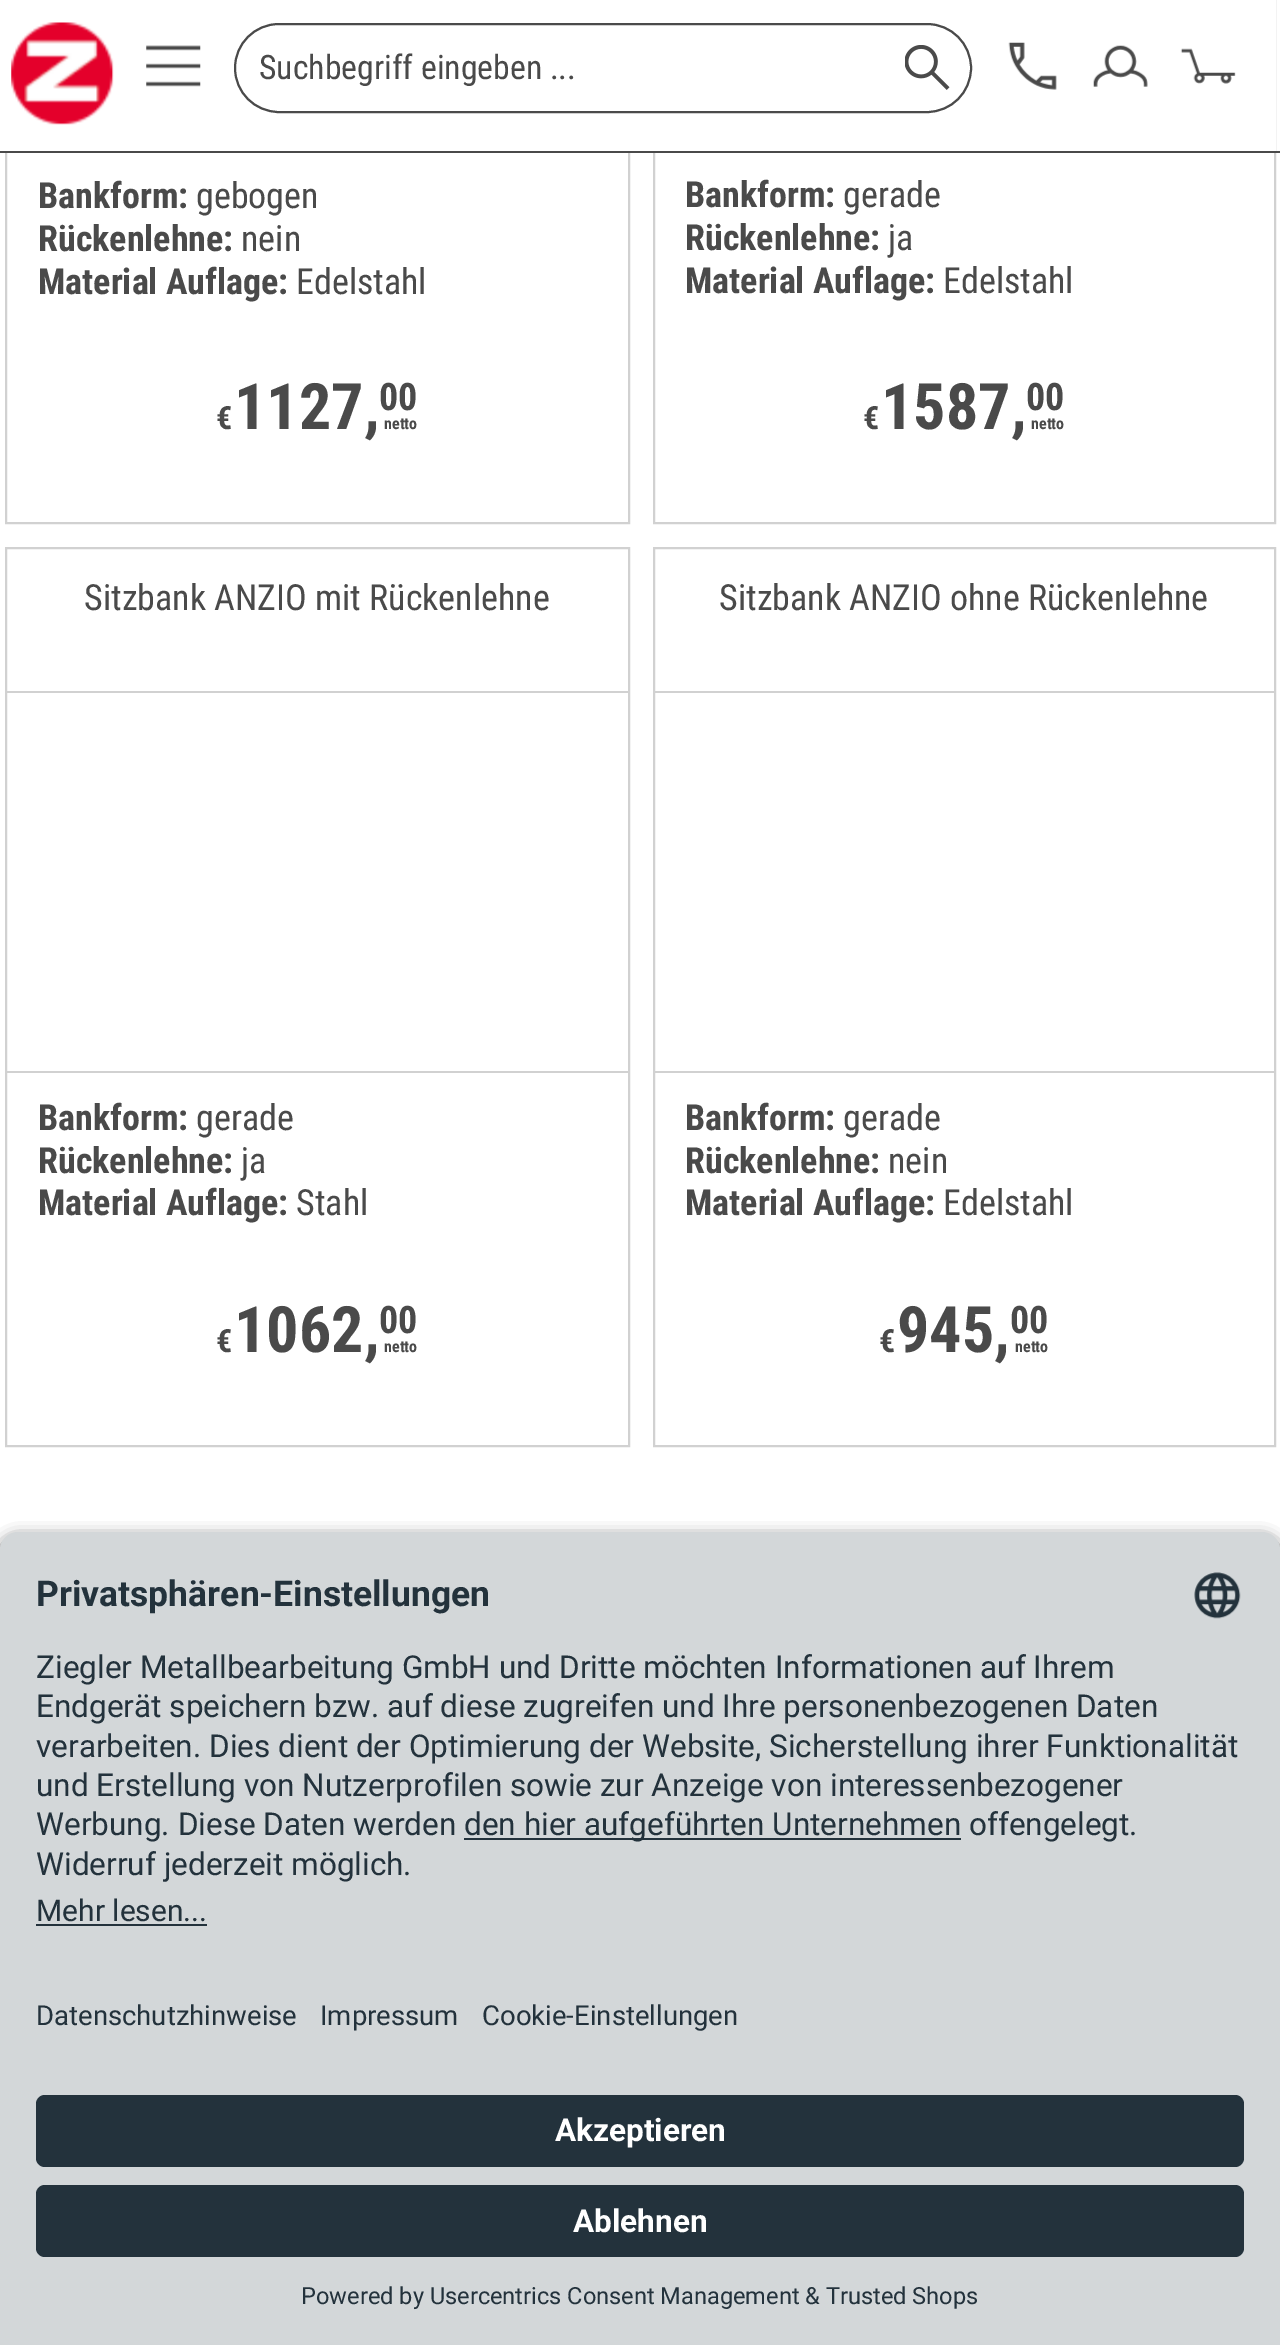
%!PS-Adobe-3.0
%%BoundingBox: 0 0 1280 2345
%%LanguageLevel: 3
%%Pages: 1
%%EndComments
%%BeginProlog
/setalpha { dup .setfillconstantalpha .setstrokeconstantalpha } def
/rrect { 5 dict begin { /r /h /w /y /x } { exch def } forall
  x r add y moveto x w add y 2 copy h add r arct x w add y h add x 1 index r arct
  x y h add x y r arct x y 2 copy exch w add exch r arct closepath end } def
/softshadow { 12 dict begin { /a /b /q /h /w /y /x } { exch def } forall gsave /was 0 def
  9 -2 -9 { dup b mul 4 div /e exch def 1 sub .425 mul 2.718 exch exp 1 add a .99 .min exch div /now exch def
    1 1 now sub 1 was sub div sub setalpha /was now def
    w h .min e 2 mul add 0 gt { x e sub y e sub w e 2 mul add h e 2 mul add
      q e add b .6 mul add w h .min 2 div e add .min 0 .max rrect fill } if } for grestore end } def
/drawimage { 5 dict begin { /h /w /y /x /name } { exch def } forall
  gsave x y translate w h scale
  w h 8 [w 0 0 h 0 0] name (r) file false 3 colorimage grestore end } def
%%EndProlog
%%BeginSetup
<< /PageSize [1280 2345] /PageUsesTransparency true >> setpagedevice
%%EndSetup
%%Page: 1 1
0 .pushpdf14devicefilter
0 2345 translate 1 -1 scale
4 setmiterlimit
1 setgray
0 0 1280 2345 rectfill
0.82 setgray
2 setlinewidth
6 -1 623 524 rectstroke
654 -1 621 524 rectstroke
1 setgray
5 0 1271 151 rectfill
0.29 setgray
0 151 1280 2 rectfill
(images/1.raw) 11 22 103 103 drawimage
(images/2.raw) 146 45 55 42 drawimage
235 24 736 88 44 rrect stroke
(images/3.raw) 905 45 45 45 drawimage
(images/4.raw) 1008 42 49 48 drawimage
(images/5.raw) 1093 45 55 42 drawimage
(images/6.raw) 1180 48 56 36 drawimage
0.82 setgray
6 548 623 898 rectstroke
7 691 621 2 rectfill
7 1071 621 2 rectfill
654 548 621 898 rectstroke
655 691 619 2 rectfill
655 1071 619 2 rectfill
0 setgray
0 1539 1280 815 18 8 0.8 softshadow
0.827 0.843 0.851 setrgbcolor
newpath 18 1532 moveto 1262 1532 lineto 1272 1532 1280 1540 1280 1550 curveto 1280 1964 lineto 0 1964 lineto 0 1550 lineto 0 1540 8 1532 18 1532 curveto closepath fill
(images/7.raw) 1194 1572 47 47 drawimage
0.137 0.196 0.235 setrgbcolor
464 1838 497 2 rectfill
36 1924 171 2 rectfill
0.827 0.843 0.851 setrgbcolor
0 1964 1280 381 rectfill
0.137 0.196 0.235 setrgbcolor
36 2095 1208 72 9 rrect fill
36 2185 1208 72 9 rrect fill
/RobotoCondensed-Regular [33.75 0 0 -33.75 0 0] selectfont
0.29 setgray
259 79 moveto (Suchbegriff eingeben ...) show
/RobotoCondensed-Bold [36 0 0 -36 0 0] selectfont
38 208 moveto (Bankform:) show
/RobotoCondensed-Regular [36 0 0 -36 0 0] selectfont
196 208 moveto (gebogen) show
/RobotoCondensed-Bold [36 0 0 -36 0 0] selectfont
38 251 moveto (Rückenlehne:) show
/RobotoCondensed-Regular [36 0 0 -36 0 0] selectfont
241 251 moveto (nein) show
/RobotoCondensed-Bold [36 0 0 -36 0 0] selectfont
38 294 moveto (Material Auflage:) show
/RobotoCondensed-Regular [36 0 0 -36 0 0] selectfont
296 294 moveto (Edelstahl) show
/RobotoCondensed-Bold [64 0 0 -64 0 0] selectfont
234 429 moveto (1127,) show
/RobotoCondensed-Bold [38 0 0 -38 0 0] selectfont
379 410 moveto (00) show
/RobotoCondensed-Bold [32 0 0 -32 0 0] selectfont
216 429 moveto (€) show
/RobotoCondensed-Bold [16 0 0 -16 0 0] selectfont
384 429 moveto (netto) show
/RobotoCondensed-Bold [36 0 0 -36 0 0] selectfont
685 207 moveto (Bankform:) show
/RobotoCondensed-Regular [36 0 0 -36 0 0] selectfont
843 207 moveto (gerade) show
/RobotoCondensed-Bold [36 0 0 -36 0 0] selectfont
685 250 moveto (Rückenlehne:) show
/RobotoCondensed-Regular [36 0 0 -36 0 0] selectfont
888 250 moveto (ja) show
/RobotoCondensed-Bold [36 0 0 -36 0 0] selectfont
685 293 moveto (Material Auflage:) show
/RobotoCondensed-Regular [36 0 0 -36 0 0] selectfont
943 293 moveto (Edelstahl) show
/RobotoCondensed-Bold [64 0 0 -64 0 0] selectfont
881 429 moveto (1587,) show
/RobotoCondensed-Bold [38 0 0 -38 0 0] selectfont
1026 410 moveto (00) show
/RobotoCondensed-Bold [32 0 0 -32 0 0] selectfont
863 429 moveto (€) show
/RobotoCondensed-Bold [16 0 0 -16 0 0] selectfont
1031 429 moveto (netto) show
/RobotoCondensed-Regular [36 0 0 -36 0 0] selectfont
84 610 moveto (Sitzbank ANZIO mit Rückenlehne) show
/RobotoCondensed-Bold [36 0 0 -36 0 0] selectfont
38 1130 moveto (Bankform:) show
/RobotoCondensed-Regular [36 0 0 -36 0 0] selectfont
196 1130 moveto (gerade) show
/RobotoCondensed-Bold [36 0 0 -36 0 0] selectfont
38 1173 moveto (Rückenlehne:) show
/RobotoCondensed-Regular [36 0 0 -36 0 0] selectfont
241 1173 moveto (ja) show
/RobotoCondensed-Bold [36 0 0 -36 0 0] selectfont
38 1215 moveto (Material Auflage:) show
/RobotoCondensed-Regular [36 0 0 -36 0 0] selectfont
296 1215 moveto (Stahl) show
/RobotoCondensed-Bold [64 0 0 -64 0 0] selectfont
234 1352 moveto (1062,) show
/RobotoCondensed-Bold [38 0 0 -38 0 0] selectfont
379 1333 moveto (00) show
/RobotoCondensed-Bold [32 0 0 -32 0 0] selectfont
216 1352 moveto (€) show
/RobotoCondensed-Bold [16 0 0 -16 0 0] selectfont
384 1352 moveto (netto) show
/RobotoCondensed-Regular [36 0 0 -36 0 0] selectfont
719 610 moveto (Sitzbank ANZIO ohne Rückenlehne) show
/RobotoCondensed-Bold [36 0 0 -36 0 0] selectfont
685 1130 moveto (Bankform:) show
/RobotoCondensed-Regular [36 0 0 -36 0 0] selectfont
843 1130 moveto (gerade) show
/RobotoCondensed-Bold [36 0 0 -36 0 0] selectfont
685 1173 moveto (Rückenlehne:) show
/RobotoCondensed-Regular [36 0 0 -36 0 0] selectfont
888 1173 moveto (nein) show
/RobotoCondensed-Bold [36 0 0 -36 0 0] selectfont
685 1215 moveto (Material Auflage:) show
/RobotoCondensed-Regular [36 0 0 -36 0 0] selectfont
943 1215 moveto (Edelstahl) show
/RobotoCondensed-Bold [64 0 0 -64 0 0] selectfont
897 1352 moveto (945,) show
/RobotoCondensed-Bold [38 0 0 -38 0 0] selectfont
1010 1333 moveto (00) show
/RobotoCondensed-Bold [32 0 0 -32 0 0] selectfont
879 1352 moveto (€) show
/RobotoCondensed-Bold [16 0 0 -16 0 0] selectfont
1015 1352 moveto (netto) show
/Roboto-Bold [35.5 0 0 -35.5 0 0] selectfont
0.137 0.196 0.235 setrgbcolor
36 1606 moveto (Privatsphären-Einstellungen) show
/Roboto-Regular [31.5 0 0 -31.5 0 0] selectfont
36 1678 moveto (Ziegler Metallbearbeitung GmbH und Dritte möchten Informationen auf Ihrem) show
36 1717 moveto (Endgerät speichern bzw. auf diese zugreifen und Ihre personenbezogenen Daten) show
36 1757 moveto (verarbeiten. Dies dient der Optimierung der Website, Sicherstellung ihrer Funktionalität) show
36 1796 moveto (und Erstellung von Nutzerprofilen sowie zur Anzeige von interessenbezogener) show
36 1835 moveto (Werbung. Diese Daten werden) show
464 1835 moveto (den hier aufgeführten Unternehmen offengelegt.) show
36 1875 moveto (Widerruf jederzeit möglich.) show
/Roboto-Regular [30 0 0 -30 0 0] selectfont
36 1921 moveto (Mehr lesen...) show
/Roboto-Regular [27.5 0 0 -27.5 0 0] selectfont
36 2025 moveto (Datenschutzhinweise) show
320 2025 moveto (Impressum) show
482 2025 moveto (Cookie-Einstellungen) show
/Roboto-Bold [31.5 0 0 -31.5 0 0] selectfont
1 setgray
555 2141 moveto (Akzeptieren) show
573 2232 moveto (Ablehnen) show
/Roboto-Regular [23.6 0 0 -23.6 0 0] selectfont
0.137 0.196 0.235 setrgbcolor
301 2304 moveto (Powered by Usercentrics Consent Management & Trusted Shops) show
.poppdf14devicefilter showpage
%%EOF
